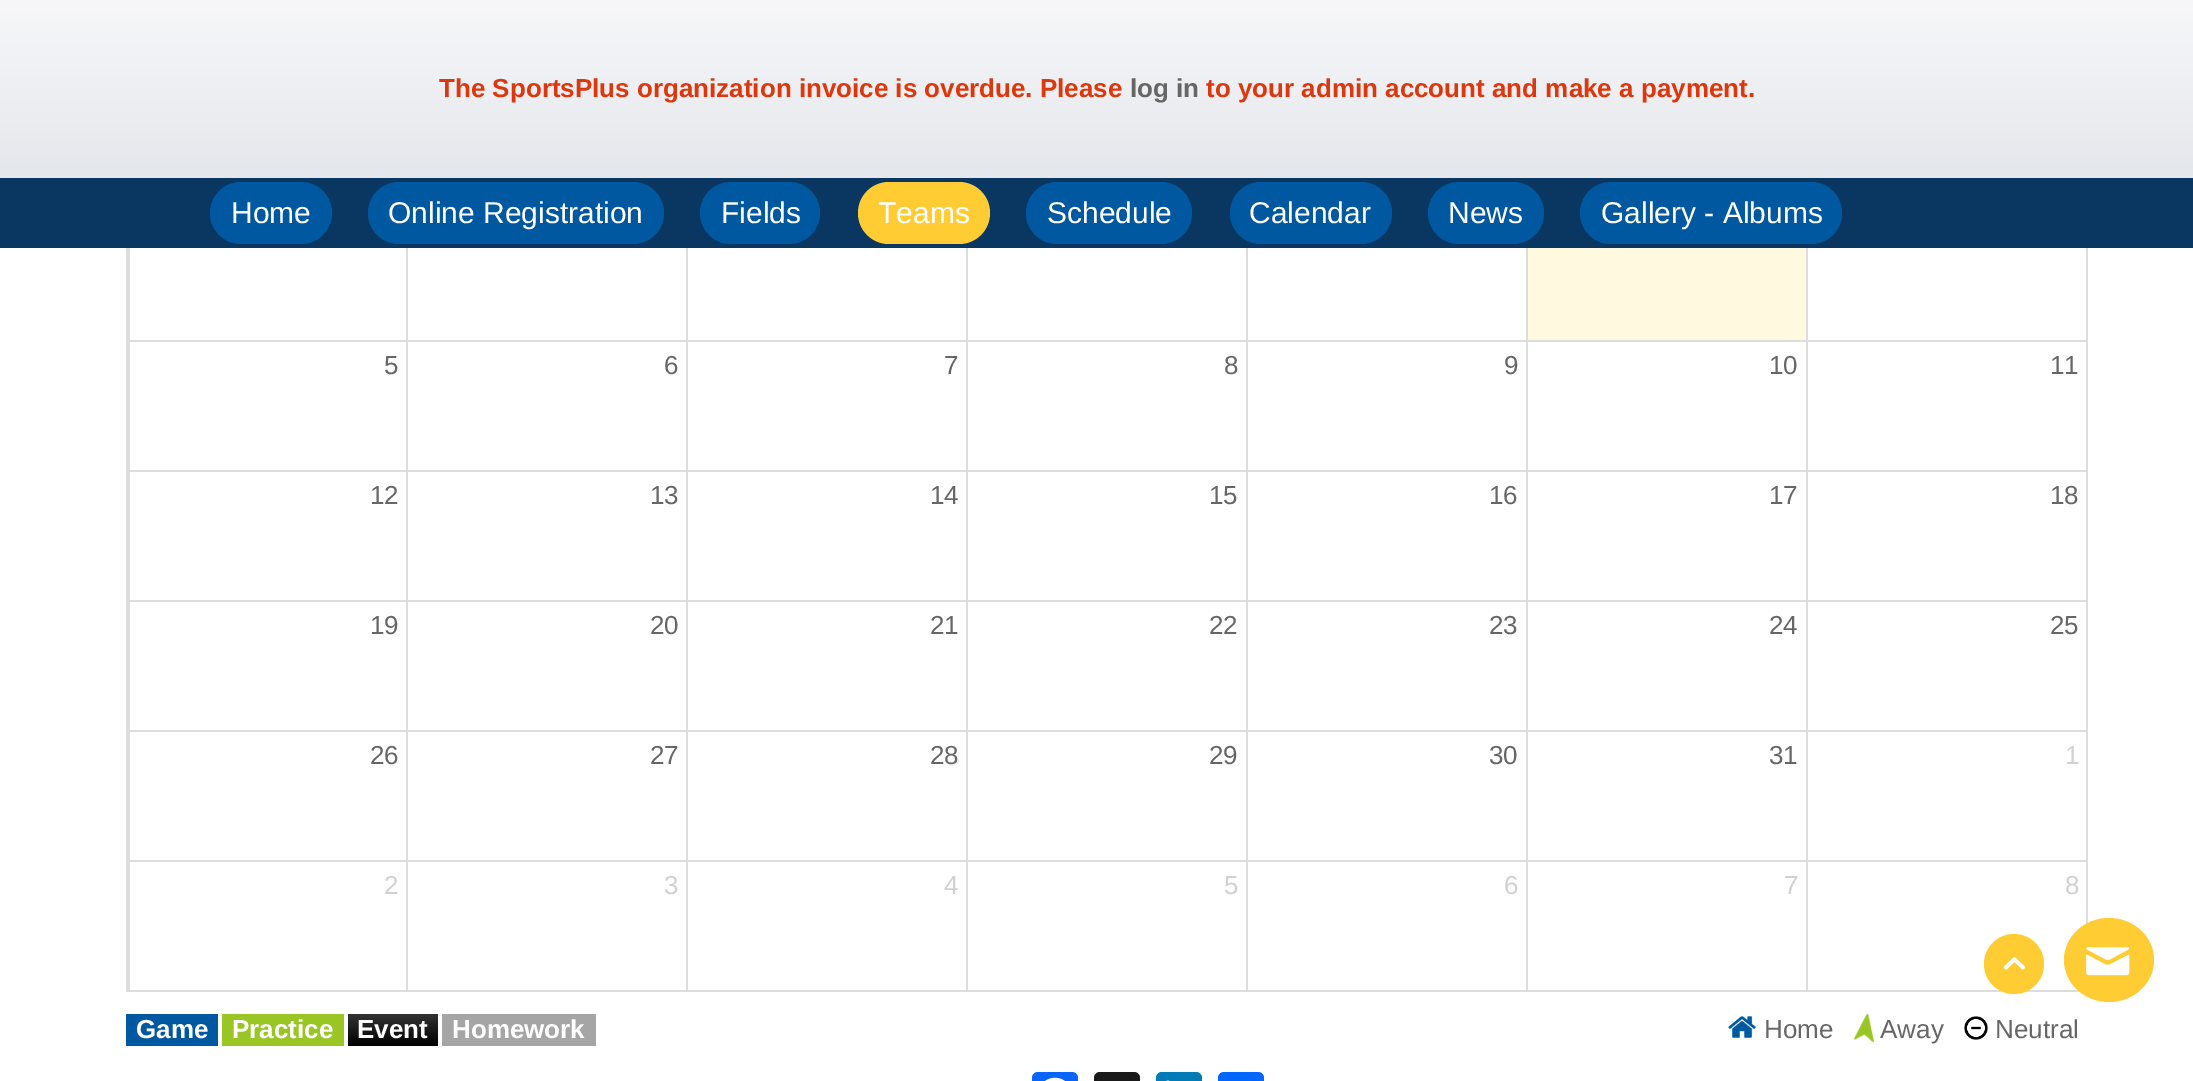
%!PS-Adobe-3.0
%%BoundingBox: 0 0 2193 1081
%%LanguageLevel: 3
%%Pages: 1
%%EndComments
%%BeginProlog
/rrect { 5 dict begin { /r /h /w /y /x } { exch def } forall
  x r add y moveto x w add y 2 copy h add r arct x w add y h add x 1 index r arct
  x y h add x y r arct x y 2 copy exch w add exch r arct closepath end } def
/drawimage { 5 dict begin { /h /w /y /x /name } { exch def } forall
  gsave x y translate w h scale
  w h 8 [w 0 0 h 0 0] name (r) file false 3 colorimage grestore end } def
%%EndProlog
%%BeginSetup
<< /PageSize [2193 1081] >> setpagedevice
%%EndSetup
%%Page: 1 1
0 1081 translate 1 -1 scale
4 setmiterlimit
1 setgray
0 0 2193 1081 rectfill
gsave newpath 0 0 moveto 2193 0 lineto 2193 178 lineto 0 178 lineto closepath clip newpath
<< /ShadingType 2 /ColorSpace /DeviceRGB /Coords [1097 0 1097 178] /Extend [true true] /Function << /FunctionType 2 /Domain [0 1] /C0 [0.969 0.969 0.98] /C1 [0.894 0.906 0.922] /N 1 >> >> shfill grestore
0.039 0.216 0.38 setrgbcolor
0 178 2193 70 rectfill
0 0.349 0.627 setrgbcolor
210 182 122 62 31 rrect fill
368 182 296 62 31 rrect fill
700 182 120 62 31 rrect fill
1 0.804 0.2 setrgbcolor
858 182 132 62 31 rrect fill
0 0.349 0.627 setrgbcolor
1026 182 166 62 31 rrect fill
1230 182 162 62 31 rrect fill
1428 182 116 62 31 rrect fill
1580 182 262 62 31 rrect fill
0.867 setgray
126 248 2 744 rectfill
2086 248 2 676 rectfill
128 990 1960 2 rectfill
1806 340 280 2 rectfill
1806 470 280 2 rectfill
1806 600 280 2 rectfill
1806 730 280 2 rectfill
1806 860 280 2 rectfill
1806 860 2 130 rectfill
1526 860 282 2 rectfill
1806 730 2 132 rectfill
1526 730 282 2 rectfill
1806 600 2 132 rectfill
1526 600 282 2 rectfill
1806 470 2 132 rectfill
1526 470 282 2 rectfill
1806 340 2 132 rectfill
1526 340 282 2 rectfill
1526 860 2 130 rectfill
1246 860 282 2 rectfill
1526 730 2 132 rectfill
1246 730 282 2 rectfill
1526 600 2 132 rectfill
1246 600 282 2 rectfill
1526 470 2 132 rectfill
1246 470 282 2 rectfill
1526 340 2 132 rectfill
1246 340 282 2 rectfill
1246 860 2 130 rectfill
966 860 282 2 rectfill
1246 730 2 132 rectfill
966 730 282 2 rectfill
1246 600 2 132 rectfill
966 600 282 2 rectfill
1246 470 2 132 rectfill
966 470 282 2 rectfill
1246 340 2 132 rectfill
966 340 282 2 rectfill
966 860 2 130 rectfill
686 860 282 2 rectfill
966 730 2 132 rectfill
686 730 282 2 rectfill
966 600 2 132 rectfill
686 600 282 2 rectfill
966 470 2 132 rectfill
686 470 282 2 rectfill
966 340 2 132 rectfill
686 340 282 2 rectfill
686 860 2 130 rectfill
406 860 282 2 rectfill
686 730 2 132 rectfill
406 730 282 2 rectfill
686 600 2 132 rectfill
406 600 282 2 rectfill
686 470 2 132 rectfill
406 470 282 2 rectfill
686 340 2 132 rectfill
406 340 282 2 rectfill
406 860 2 130 rectfill
128 860 280 2 rectfill
406 730 2 132 rectfill
128 730 280 2 rectfill
406 600 2 132 rectfill
128 600 280 2 rectfill
406 470 2 132 rectfill
128 470 280 2 rectfill
406 340 2 132 rectfill
128 340 280 2 rectfill
406 248 2 94 rectfill
686 248 2 94 rectfill
966 248 2 94 rectfill
1246 248 2 94 rectfill
1 0.98 0.875 setrgbcolor
1528 248 278 92 rectfill
0.867 setgray
1526 248 2 94 rectfill
1806 248 2 94 rectfill
128 860 2 130 rectfill
128 730 2 132 rectfill
128 600 2 132 rectfill
128 470 2 132 rectfill
128 248 2 224 rectfill
0 0.349 0.627 setrgbcolor
126 1014 92 32 rectfill
0.6 0.776 0.141 setrgbcolor
222 1014 122 32 rectfill
gsave newpath 348 1014 moveto 438 1014 lineto 438 1046 lineto 348 1046 lineto closepath clip newpath
<< /ShadingType 2 /ColorSpace /DeviceRGB /Coords [393 1014 393 1046] /Extend [true true] /Function << /FunctionType 2 /Domain [0 1] /C0 [0.2 0.2 0.2] /C1 [0 0 0] /N 1 >> >> shfill grestore
0.647 setgray
442 1014 154 32 rectfill
(images/1.raw) 1728 1016 28 22 drawimage
(images/2.raw) 1854 1014 20 28 drawimage
(images/3.raw) 1964 1016 24 24 drawimage
0.031 0.4 1 setrgbcolor
1032 1072 46 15 6 rrect fill
(images/4.raw) 1045 1077 20 4 drawimage
0.102 setgray
1094 1072 46 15 6 rrect fill
0 0.482 0.71 setrgbcolor
1156 1072 46 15 6 rrect fill
(images/5.raw) 1166 1080 4 1 drawimage
0.004 0.4 1 setrgbcolor
1218 1072 46 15 6 rrect fill
1 0.804 0.2 setrgbcolor
newpath 2014 964 30 0 360 arc closepath fill
(images/6.raw) 2004 957 21 13 drawimage
newpath 2109 918 moveto 2134 918 2154 937 2154 960 curveto 2154 983 2134 1002 2109 1002 curveto 2084 1002 2064 983 2064 960 curveto 2064 937 2084 918 2109 918 curveto closepath fill
(images/7.raw) 2086 947 44 29 drawimage
/LiberationSans-Bold [26 0 0 -26 0 0] selectfont
0.867 0.22 0.051 setrgbcolor
439 97 moveto (The SportsPlus organization invoice is overdue. Please) show
0.4 setgray
1130 97 moveto (log in) show
0.867 0.22 0.051 setrgbcolor
1206 97 moveto (to your admin account and make a payment.) show
/LiberationSans-Regular [30 0 0 -30 0 0] selectfont
1 setgray
231 223 moveto (Home) show
388 223 moveto (Online Registration) show
721 223 moveto (Fields) show
878 223 moveto (Teams) show
1047 223 moveto (Schedule) show
1249 223 moveto (Calendar) show
1448 223 moveto (News) show
1601 223 moveto (Gallery - Albums) show
/LiberationSans-Regular [26 0 0 -26 0 0] selectfont
0.4 setgray
384 374 moveto (5) show
664 374 moveto (6) show
944 374 moveto (7) show
1224 374 moveto (8) show
1504 374 moveto (9) show
1769 374 moveto (10) show
2050 374 moveto (11) show
370 504 moveto (12) show
650 504 moveto (13) show
930 504 moveto (14) show
1209 504 moveto (15) show
1489 504 moveto (16) show
1769 504 moveto (17) show
2050 504 moveto (18) show
370 634 moveto (19) show
650 634 moveto (20) show
930 634 moveto (21) show
1209 634 moveto (22) show
1489 634 moveto (23) show
1769 634 moveto (24) show
2050 634 moveto (25) show
370 764 moveto (26) show
650 764 moveto (27) show
930 764 moveto (28) show
1209 764 moveto (29) show
1489 764 moveto (30) show
1769 764 moveto (31) show
0.82 setgray
2065 764 moveto (1) show
384 894 moveto (2) show
664 894 moveto (3) show
944 894 moveto (4) show
1224 894 moveto (5) show
1504 894 moveto (6) show
1784 894 moveto (7) show
2065 894 moveto (8) show
/LiberationSans-Bold [26 0 0 -26 0 0] selectfont
1 setgray
136 1038 moveto (Game) show
232 1038 moveto (Practice) show
357 1038 moveto (Event) show
452 1038 moveto (Homework) show
/LiberationSans-Regular [26 0 0 -26 0 0] selectfont
0.4 setgray
1764 1038 moveto (Home) show
1880 1038 moveto (Away) show
1995 1038 moveto (Neutral) show
showpage
%%EOF
